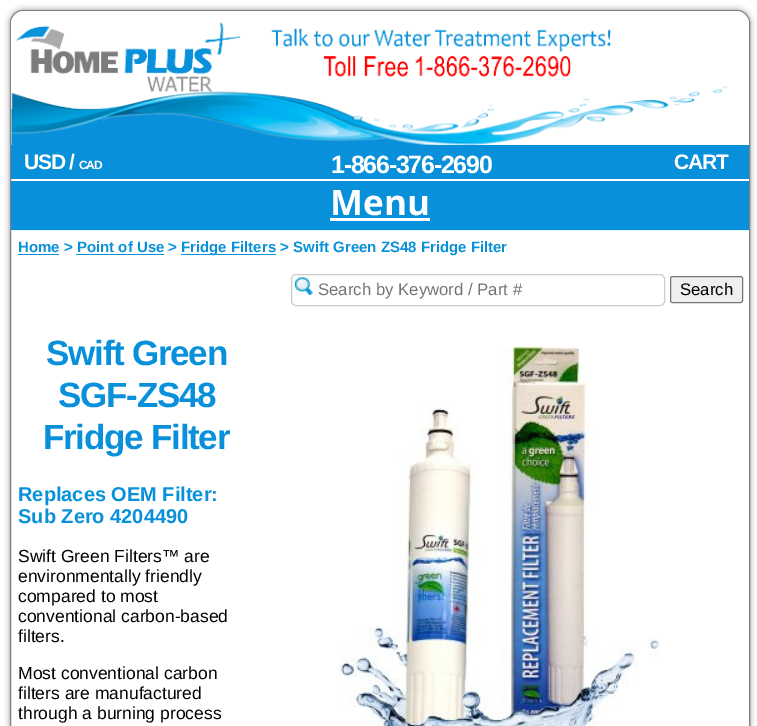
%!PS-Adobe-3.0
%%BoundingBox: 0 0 757 726
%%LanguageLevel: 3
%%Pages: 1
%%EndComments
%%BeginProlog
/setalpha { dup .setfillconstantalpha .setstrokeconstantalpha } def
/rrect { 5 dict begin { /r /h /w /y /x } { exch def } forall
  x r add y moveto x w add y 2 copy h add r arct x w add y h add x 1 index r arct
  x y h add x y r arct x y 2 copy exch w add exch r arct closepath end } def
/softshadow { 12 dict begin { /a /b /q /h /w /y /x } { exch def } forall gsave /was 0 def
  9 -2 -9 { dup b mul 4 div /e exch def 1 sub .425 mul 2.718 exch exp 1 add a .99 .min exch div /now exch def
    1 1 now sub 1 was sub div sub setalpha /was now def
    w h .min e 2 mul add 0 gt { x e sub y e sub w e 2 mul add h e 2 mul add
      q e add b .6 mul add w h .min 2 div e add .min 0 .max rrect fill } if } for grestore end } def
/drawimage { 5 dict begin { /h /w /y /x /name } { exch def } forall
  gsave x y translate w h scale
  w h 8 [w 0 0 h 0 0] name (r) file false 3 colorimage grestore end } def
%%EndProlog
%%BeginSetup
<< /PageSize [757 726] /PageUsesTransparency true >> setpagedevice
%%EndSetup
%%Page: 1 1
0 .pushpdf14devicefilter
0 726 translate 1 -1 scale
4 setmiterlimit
1 setgray
0 0 757 726 rectfill
0.533 setgray
10 10 740 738 13 3 1 softshadow
1 setgray
10.5 10.5 739 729 12.5 rrect gsave fill grestore
0.502 setgray
stroke
1 setgray
newpath 24 11 moveto 736 11 lineto 743 11 749 17 749 24 curveto 749 145 lineto 11 145 lineto 11 24 lineto 11 17 17 11 24 11 curveto closepath fill
(images/1.raw) 11 22 717 123 drawimage
0.031 0.565 0.855 setrgbcolor
11 145 738 34 rectfill
11 181 738 49 rectfill
0.878 0.945 0.976 setrgbcolor
11 230 738 1 rectfill
1 setgray
330 218 100 3 rectfill
0.031 0.565 0.855 setrgbcolor
18 254 41 1 rectfill
181 254 95 1 rectfill
76 254 88 1 rectfill
(images/2.raw) 295 277 18 18 drawimage
0.8 setgray
291.5 274.5 373 31 4.5 rrect stroke
0.937 setgray
670.5 276.5 72 26 2 rrect gsave fill grestore
0.463 setgray
stroke
(images/3.raw) 338 346 321 380 drawimage
/LiberationSans-Bold [21 0 0 -21 0 0] selectfont
1 setgray
24 169 moveto -1.25 0 (USD /) ashow
/LiberationSans-Bold [12 0 0 -12 0 0] selectfont
79 169 moveto -1.25 0 (CAD) ashow
/LiberationSans-Bold [25 0 0 -25 0 0] selectfont
331 173 moveto -1.25 0 (1-866-376-2690) ashow
/LiberationSans-Bold [21 0 0 -21 0 0] selectfont
674 169 moveto -1.25 0 (CART) ashow
/OpenSans-Bold [35 0 0 -35 0 0] selectfont
330 215 moveto (Menu) show
/LiberationSans-Bold [15 0 0 -15 0 0] selectfont
0.031 0.565 0.855 setrgbcolor
18 252 moveto (Home > Point of Use >) show
181 252 moveto (Fridge Filters > Swift Green ZS48 Fridge Filter) show
/LiberationSans-Regular [16.75 0 0 -16.75 0 0] selectfont
0.459 setgray
318 295 moveto (Search by Keyword / Part #) show
0 setgray
680 295 moveto (Search) show
/LiberationSans-Bold [35 0 0 -35 0 0] selectfont
0.031 0.565 0.855 setrgbcolor
46 365 moveto -1.25 0 (Swift Green) ashow
58 407 moveto -1.25 0 (SGF-ZS48) ashow
43 449 moveto -1.25 0 (Fridge Filter) ashow
/LiberationSans-Bold [20 0 0 -20 0 0] selectfont
18 501 moveto (Replaces OEM Filter:) show
18 523 moveto (Sub Zero 4204490) show
/LiberationSans-Regular [17.5 0 0 -17.5 0 0] selectfont
0 setgray
18 562 moveto (Swift Green Filters™ are) show
18 582 moveto (environmentally friendly) show
18 602 moveto (compared to most) show
18 622 moveto (conventional carbon-based) show
18 642 moveto (filters.) show
18 679 moveto (Most conventional carbon) show
18 699 moveto (filters are manufactured) show
18 719 moveto (through a burning process) show
.poppdf14devicefilter showpage
%%EOF
